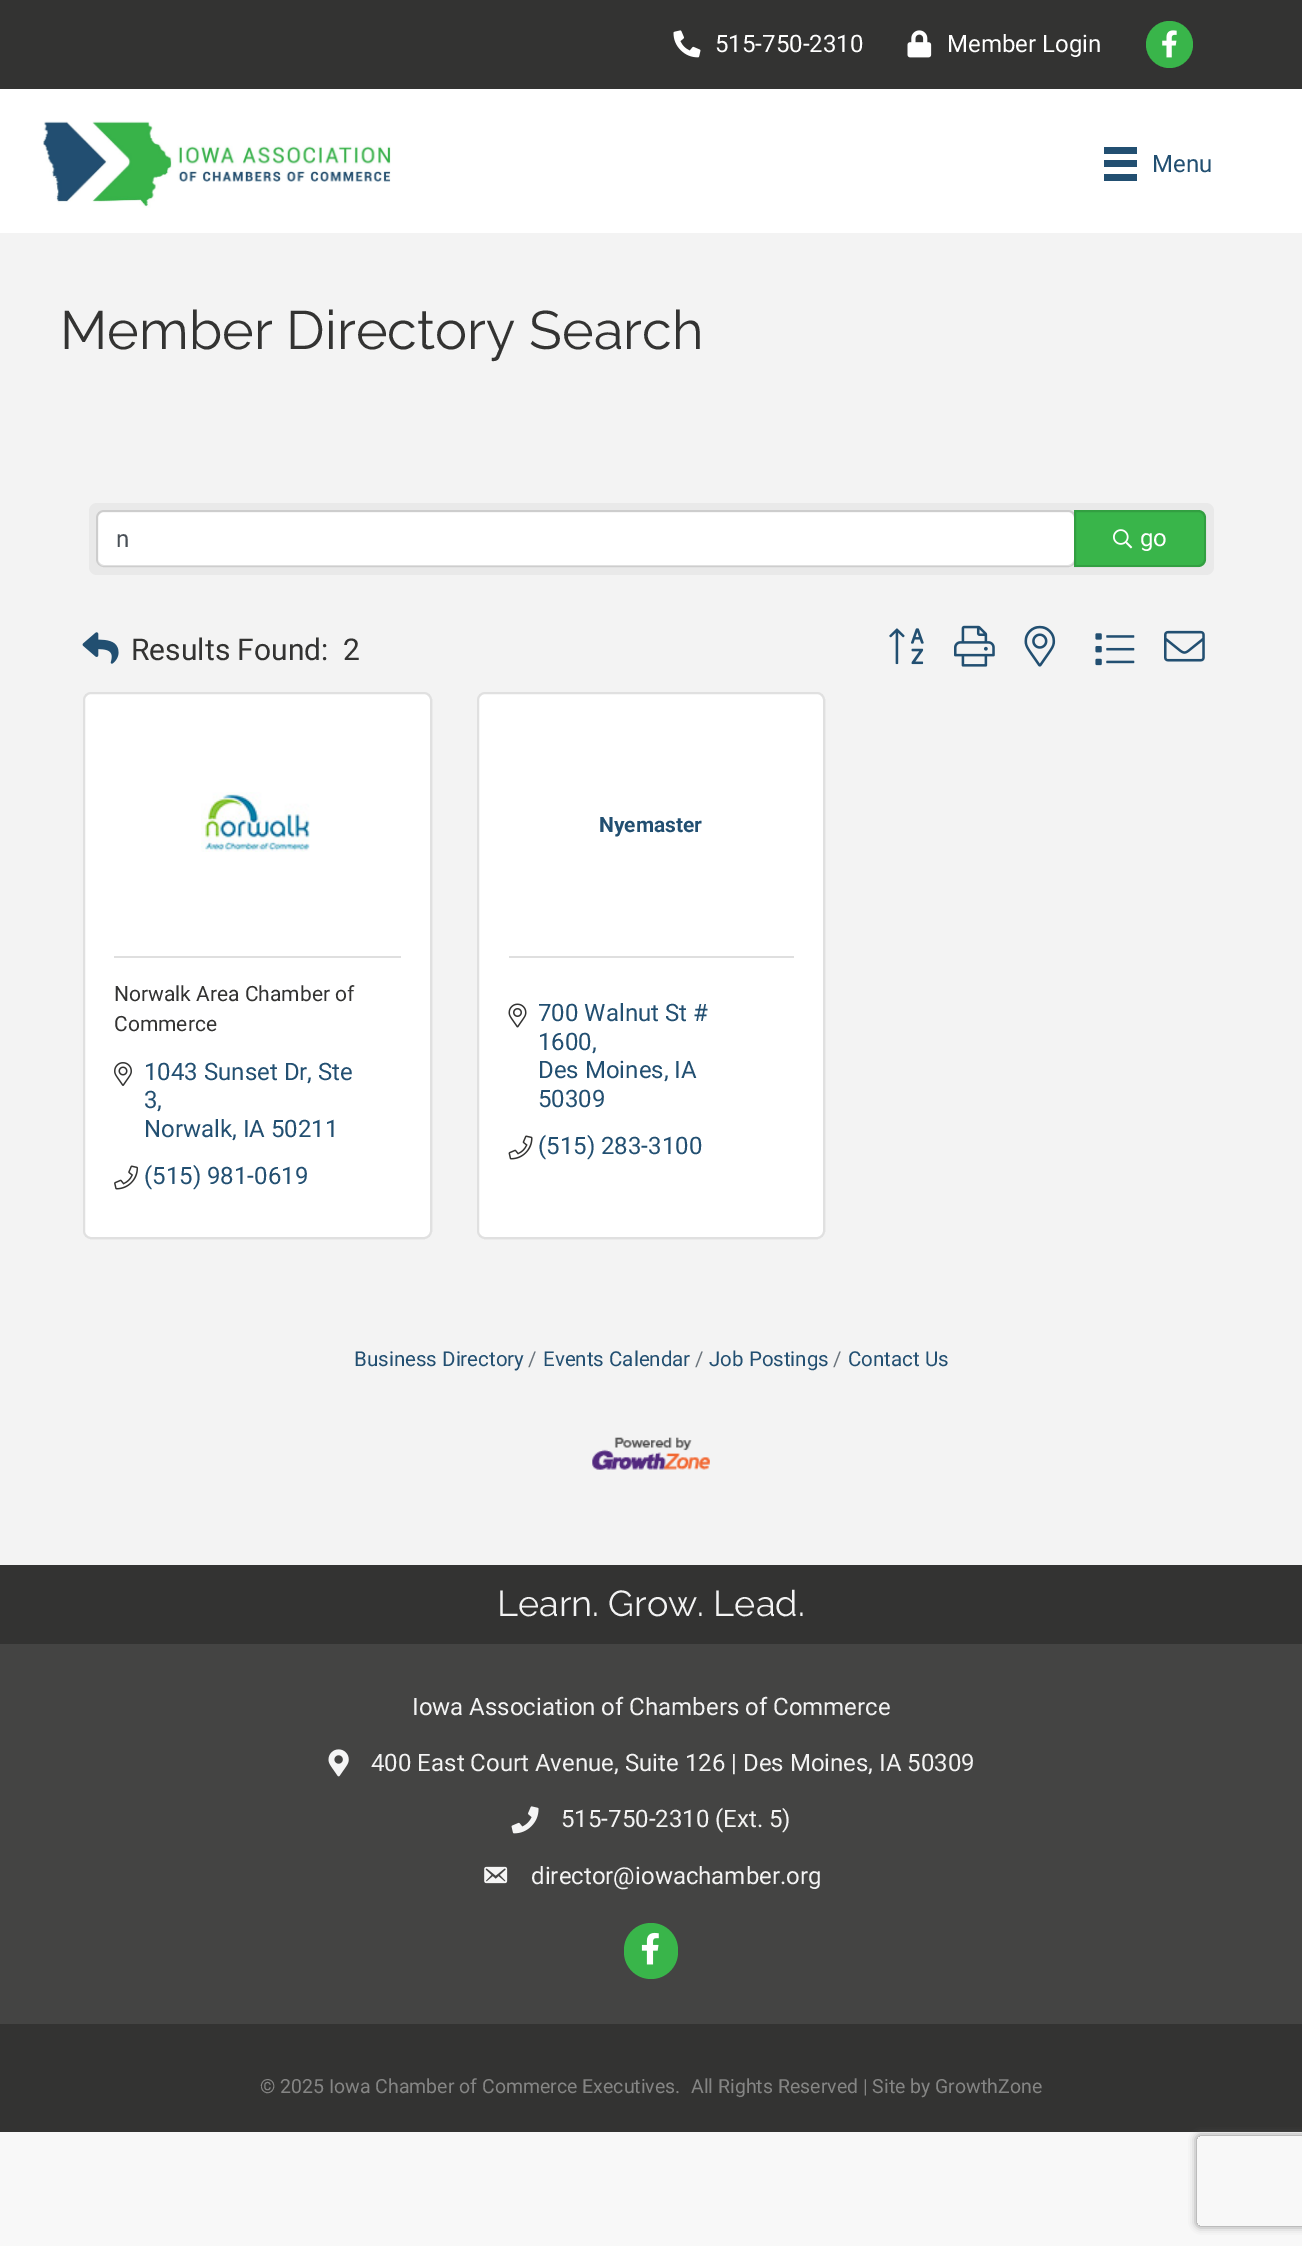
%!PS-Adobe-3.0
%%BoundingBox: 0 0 1302 2246
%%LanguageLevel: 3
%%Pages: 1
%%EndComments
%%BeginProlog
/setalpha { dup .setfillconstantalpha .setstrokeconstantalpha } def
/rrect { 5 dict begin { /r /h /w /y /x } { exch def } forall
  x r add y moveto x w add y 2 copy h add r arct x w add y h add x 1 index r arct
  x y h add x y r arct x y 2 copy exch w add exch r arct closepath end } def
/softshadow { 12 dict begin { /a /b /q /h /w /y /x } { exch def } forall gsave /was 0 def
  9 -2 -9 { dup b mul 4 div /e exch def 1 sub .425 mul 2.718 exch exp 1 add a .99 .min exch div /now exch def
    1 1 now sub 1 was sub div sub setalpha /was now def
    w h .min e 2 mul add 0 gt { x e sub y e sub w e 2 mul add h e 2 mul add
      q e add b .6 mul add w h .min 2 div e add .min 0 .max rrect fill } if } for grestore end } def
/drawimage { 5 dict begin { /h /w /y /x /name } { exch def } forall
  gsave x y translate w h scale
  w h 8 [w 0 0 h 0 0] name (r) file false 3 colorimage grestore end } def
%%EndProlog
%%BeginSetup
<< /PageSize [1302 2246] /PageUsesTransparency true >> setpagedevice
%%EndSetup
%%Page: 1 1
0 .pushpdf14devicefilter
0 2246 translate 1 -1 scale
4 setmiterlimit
0.973 setgray
0 0 1302 2246 rectfill
0.2 0.2 0.196 setrgbcolor
0 0 1302 89 rectfill
(images/1.raw) 673 30 28 28 drawimage
(images/2.raw) 907 30 25 28 drawimage
0.224 0.71 0.29 setrgbcolor
newpath 1169.5 44.5 23.5 0 360 arc closepath fill
(images/3.raw) 1162 30 15 28 drawimage
1 setgray
0 89 1302 144 rectfill
(images/4.raw) 43 121 348 87 drawimage
0.133 0.31 0.443 setrgbcolor
1104 147 33 7 rectfill
1104 160 33 7 rectfill
1104 174 33 7 rectfill
0.953 setgray
0 233 1302 1332 rectfill
0.914 setgray
89 503 1125 72 8 rrect fill
1 setgray
98 512 976 54 6 rrect fill
0.12 setalpha
0 setgray
2 setlinewidth
97 511 978 55 7 rrect stroke
1 setalpha
0.224 0.71 0.29 setrgbcolor
newpath 1074 510 moveto 1198 510 lineto 1202.5 510 1206 513.5 1206 518 curveto 1206 559 lineto 1206 563.5 1202.5 567 1198 567 curveto 1074 567 lineto closepath fill
0.12 setalpha
0 setgray
newpath 1075 511 moveto 1198 511 lineto 1202 511 1205 514 1205 518 curveto 1205 559 lineto 1205 563 1202 566 1198 566 curveto 1075 566 lineto closepath stroke
1 setalpha
(images/5.raw) 1113 529 20 20 drawimage
(images/6.raw) 82 632 37 32 drawimage
(images/7.raw) 889 628 35 37 drawimage
(images/8.raw) 954 625 41 42 drawimage
(images/9.raw) 1024 625 32 42 drawimage
(images/10.raw) 1095 633 40 33 drawimage
(images/11.raw) 1164 630 41 32 drawimage
1 setgray
83 692 349 547 8 rrect fill
0.12 setalpha
0 setgray
84 693 347 545 7 rrect stroke
1 setalpha
(images/12.raw) 201 792 109 60 drawimage
0.875 setgray
114 956 287 2 rectfill
(images/13.raw) 114 1062 18 24 drawimage
(images/14.raw) 114 1165 25 25 drawimage
1 setgray
477 692 348 547 8 rrect fill
0.12 setalpha
0 setgray
478 693 346 545 7 rrect stroke
1 setalpha
0.875 setgray
509 956 285 2 rectfill
(images/15.raw) 508 1003 19 25 drawimage
(images/16.raw) 508 1135 25 25 drawimage
(images/17.raw) 592 1437 118 33 drawimage
0.2 0.2 0.196 setrgbcolor
0 1565 1302 79 rectfill
0.267 0.267 0.263 setrgbcolor
0 1644 1302 380 rectfill
(images/18.raw) 328 1749 21 28 drawimage
(images/19.raw) 511 1806 28 28 drawimage
(images/20.raw) 484 1866 24 18 drawimage
0.224 0.71 0.29 setrgbcolor
624 1923 54 56 27 rrect fill
(images/21.raw) 641 1932 18 33 drawimage
0.2 0.2 0.196 setrgbcolor
0 2024 1302 108 rectfill
gsave
newpath 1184 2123 moveto 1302 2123 lineto 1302 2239 lineto 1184 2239 lineto closepath 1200 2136 moveto 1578 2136 lineto 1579.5 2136 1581 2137.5 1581 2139 curveto 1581 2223 lineto 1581 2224.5 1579.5 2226 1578 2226 curveto 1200 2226 lineto 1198.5 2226 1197 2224.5 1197 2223 curveto 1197 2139 lineto 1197 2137.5 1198.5 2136 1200 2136 curveto closepath eoclip newpath
0.502 setgray
1197 2136 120 90 3 4 1 softshadow
grestore
/Roboto-Regular [24 0 0 -24 0 0] selectfont
1 setgray
715 52 moveto (515-750-2310) show
947 52 moveto (Member Login) show
0.133 0.31 0.443 setrgbcolor
1152 172 moveto (Menu) show
/Raleway-Regular [54 0 0 -54 0 0] selectfont
0.2 0.2 0.196 setrgbcolor
60 349 moveto (Member Directory Search) show
/Roboto-Regular [24 0 0 -24 0 0] selectfont
0.286 0.314 0.341 setrgbcolor
116 547 moveto (n) show
1 setgray
1140 546 moveto (go) show
/Roboto-Regular [30 0 0 -30 0 0] selectfont
0.2 0.2 0.196 setrgbcolor
131 660 moveto (Results Found:) show
343 660 moveto (2) show
/Roboto-Regular [21 0 0 -21 0 0] selectfont
114 1001 moveto (Norwalk Area Chamber of) show
114 1031 moveto (Commerce) show
/Roboto-Regular [24 0 0 -24 0 0] selectfont
0.133 0.31 0.443 setrgbcolor
144 1080 moveto (1043 Sunset Dr, Ste) show
144 1108 moveto (3,) show
144 1137 moveto (Norwalk, IA 50211) show
144 1184 moveto (\(515\) 981-0619) show
/Roboto-Bold [21 0 0 -21 0 0] selectfont
599 832 moveto (Nyemaster) show
/Roboto-Regular [24 0 0 -24 0 0] selectfont
538 1021 moveto (700 Walnut St #) show
538 1050 moveto (1600,) show
538 1078 moveto (Des Moines, IA) show
538 1107 moveto (50309) show
538 1154 moveto (\(515\) 283-3100) show
/Roboto-Regular [20.5 0 0 -20.5 0 0] selectfont
354 1366 moveto (Business Directory) show
0.424 0.459 0.49 setrgbcolor
528 1366 moveto (/) show
0.133 0.31 0.443 setrgbcolor
543 1366 moveto (Events Calendar) show
0.424 0.459 0.49 setrgbcolor
695 1366 moveto (/) show
0.133 0.31 0.443 setrgbcolor
709 1366 moveto (Job Postings) show
0.424 0.459 0.49 setrgbcolor
833 1366 moveto (/) show
0.133 0.31 0.443 setrgbcolor
848 1366 moveto (Contact Us) show
/Raleway-Regular [36 0 0 -36 0 0] selectfont
0.953 setgray
497 1616 moveto (Learn. Grow. Lead.) show
/Roboto-Regular [24 0 0 -24 0 0] selectfont
412 1715 moveto (Iowa Association of Chambers of Commerce) show
371 1771 moveto (400 East Court Avenue, Suite 126 | Des Moines, IA 50309) show
561 1827 moveto (515-750-2310 \(Ext. 5\)) show
531 1884 moveto (director@iowachamber.org) show
/Roboto-Regular [19.5 0 0 -19.5 0 0] selectfont
0.522 0.522 0.518 setrgbcolor
260 2093 moveto (© 2025 Iowa Chamber of Commerce Executives.) show
691 2093 moveto (All Rights Reserved | Site by GrowthZone) show
.poppdf14devicefilter showpage
%%EOF
